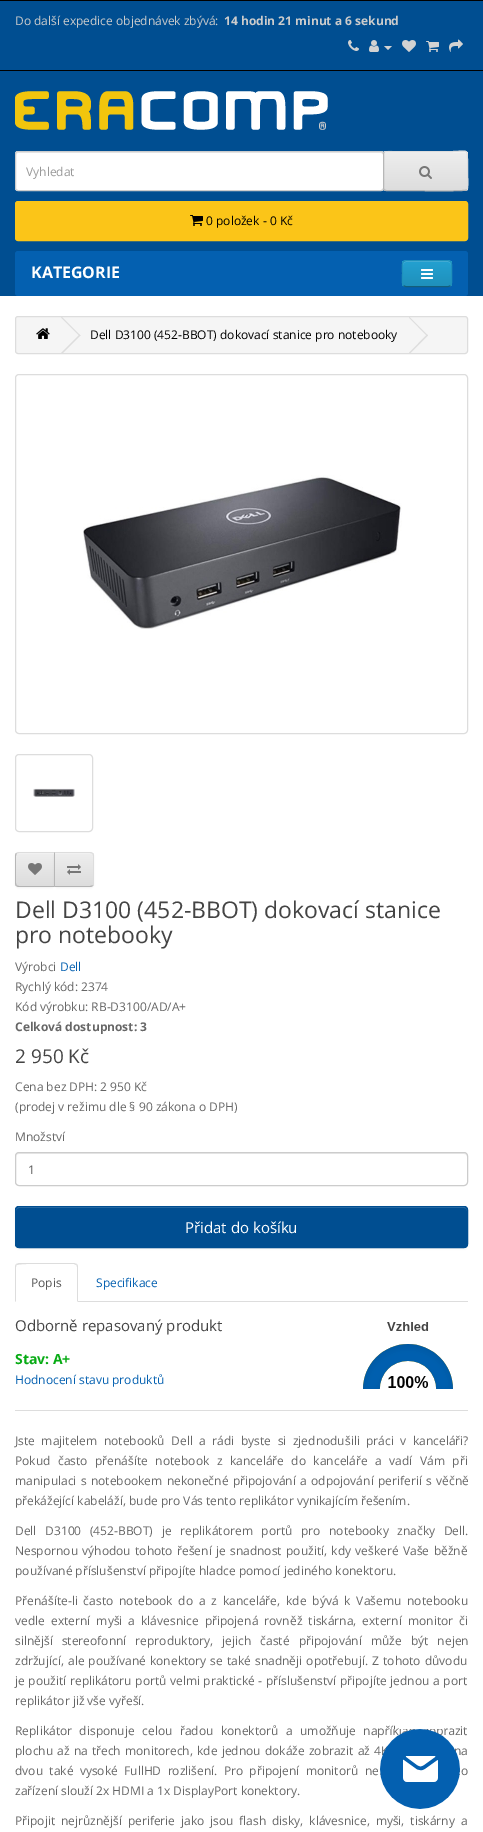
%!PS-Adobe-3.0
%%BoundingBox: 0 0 483 1832
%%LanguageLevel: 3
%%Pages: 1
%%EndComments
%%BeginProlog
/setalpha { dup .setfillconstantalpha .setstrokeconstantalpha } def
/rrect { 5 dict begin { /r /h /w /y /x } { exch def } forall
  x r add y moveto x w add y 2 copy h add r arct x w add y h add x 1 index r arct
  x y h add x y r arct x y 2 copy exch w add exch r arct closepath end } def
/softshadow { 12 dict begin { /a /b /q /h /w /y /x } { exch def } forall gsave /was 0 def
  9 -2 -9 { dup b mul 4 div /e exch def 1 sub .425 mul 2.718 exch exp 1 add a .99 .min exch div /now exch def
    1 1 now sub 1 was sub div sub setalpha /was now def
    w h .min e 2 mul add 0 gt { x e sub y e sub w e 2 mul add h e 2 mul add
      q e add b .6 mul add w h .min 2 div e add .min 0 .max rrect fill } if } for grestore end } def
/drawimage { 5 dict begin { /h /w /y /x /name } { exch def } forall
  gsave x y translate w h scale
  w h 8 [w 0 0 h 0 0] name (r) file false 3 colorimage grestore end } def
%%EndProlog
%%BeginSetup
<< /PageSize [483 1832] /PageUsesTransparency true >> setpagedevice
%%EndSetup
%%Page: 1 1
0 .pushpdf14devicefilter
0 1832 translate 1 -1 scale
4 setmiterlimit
1 setgray
0 0 483 1832 rectfill
0 0.306 0.569 setrgbcolor
0 1 483 295 rectfill
0 setgray
0 0 483 1 rectfill
0 70 483 1 rectfill
(images/1.raw) 348 40 11 11 drawimage
(images/2.raw) 369 40 10 12 drawimage
0.824 setgray
newpath 384 46 moveto 392 46 lineto 388 50 lineto closepath fill
(images/3.raw) 402 40 14 12 drawimage
(images/4.raw) 426 41 13 11 drawimage
(images/5.raw) 449 39 14 13 drawimage
(images/6.raw) 15 91 313 39 drawimage
1 setgray
15 151 369 40 3 rrect fill
0.925 setgray
newpath 18 153 moveto 381 153 lineto 382 153 383 154 383 155 curveto 383 154 383 152 381 152 curveto 18 152 lineto 16 152 16 154 16 155 curveto 16 154 17 153 18 153 curveto closepath fill
0.8 setgray
15.5 151.5 368 39 2.5 rrect stroke
0.906 setgray
383 151 85 40 3 rrect fill
gsave
383 151 85 40 3 rrect clip newpath
gsave newpath 383 152 moveto 468 152 lineto 468 190 lineto 383 190 lineto closepath clip newpath
<< /ShadingType 2 /ColorSpace /DeviceRGB /Coords [426 152 426 190] /Extend [true true] /Function << /FunctionType 2 /Domain [0 1] /C0 [0.933 0.933 0.933] /C1 [0.867 0.867 0.867] /N 1 >> >> shfill grestore
grestore
0.2 setalpha
1 setgray
newpath 386 153 moveto 465 153 lineto 466 153 467 154 467 155 curveto 467 148 455 152 452 152 curveto 399 152 lineto 396 152 384 148 384 155 curveto 384 154 385 153 386 153 curveto closepath fill
1 setalpha
0.867 setgray
newpath 384 152 moveto 386 151.5 lineto 452 151.5 lineto 466.5 151.5 467.5 148 467.5 159.5 curveto 467.5 171 lineto 467.5 174 468.5 188 467 190 curveto stroke
0.702 setgray
newpath 467 190 moveto 466.5 190 lineto 464.5 191.5 406.5 190.5 399 190.5 curveto 386 190.5 lineto 384 190 lineto stroke
0.718 setgray
newpath 384 190 moveto 383.5 188 lineto 383.5 154 lineto 384 152 lineto stroke
(images/7.raw) 419 166 13 13 drawimage
0.984 0.773 0.094 setrgbcolor
15.5 201.5 452 39 2.5 rrect gsave fill grestore
stroke
(images/8.raw) 190 215 13 11 drawimage
0.016 0.376 0.69 setrgbcolor
15 251 453 45 3 rrect fill
0.133 0.604 0.784 setrgbcolor
402 260 50 27 4 rrect fill
gsave
402 260 50 27 4 rrect clip newpath
gsave newpath 402 261 moveto 452 261 lineto 452 286 lineto 402 286 lineto closepath clip newpath
<< /ShadingType 2 /ColorSpace /DeviceRGB /Coords [427 261 427 286] /Extend [true true] /Function << /FunctionType 2 /Domain [0 1] /C0 [0.137 0.631 0.82] /C1 [0.122 0.565 0.733] /N 1 >> >> shfill grestore
grestore
0.31 0.706 0.855 setrgbcolor
newpath 406 262 moveto 448 262 lineto 450 262 451 263 451 265 curveto 451 259 445 261 441 261 curveto 413 261 lineto 409 261 403 259 403 265 curveto 403 263 404 262 406 262 curveto closepath fill
0.078 0.369 0.478 setrgbcolor
newpath 450.5 285.5 moveto 450 286 449 286.5 448 286.5 curveto 406 286.5 lineto 405 286.5 404 286 403.5 285.5 curveto stroke
0.122 0.565 0.733 setrgbcolor
newpath 403.5 285.5 moveto 401.5 283.5 402.5 276 402.5 273.5 curveto 402.5 260.5 400.5 260.5 413 260.5 curveto 441 260.5 lineto 453.5 260.5 451.5 260.5 451.5 273.5 curveto 451.5 276 452.5 283.5 450.5 285.5 curveto stroke
(images/9.raw) 421 269 12 10 drawimage
0.961 setgray
15.5 316.5 452 37 2.5 rrect gsave fill grestore
0.867 setgray
stroke
(images/10.raw) 36 328 14 11 drawimage
newpath 61 317.5 moveto 62 317 lineto 80.5 335.5 lineto 79.5 336 lineto closepath fill
newpath 61 353 moveto 79.5 334.5 lineto 80.5 335.5 lineto 62 354 lineto closepath fill
newpath 409 317.5 moveto 409.5 317 lineto 428 335.5 lineto 427 336 lineto closepath fill
newpath 409 353 moveto 427 334.5 lineto 428 335.5 lineto 409.5 354 lineto closepath fill
15.5 374.5 452 359 3.5 rrect stroke
(images/11.raw) 83 475 319 154 drawimage
15.5 754.5 77 77 3.5 rrect stroke
(images/12.raw) 33 788 42 9 drawimage
0 setgray
15 853 40 35 4 1 0.05 softshadow
gsave
newpath 19 852 moveto 55 852 lineto 55 887 lineto 19 887 lineto 17 887 15 885 15 883 curveto 15 856 lineto 15 854 17 852 19 852 curveto closepath clip newpath
gsave newpath 15 853 moveto 54 853 lineto 54 886 lineto 15 886 lineto closepath clip newpath
<< /ShadingType 2 /ColorSpace /DeviceRGB /Coords [35 853 35 886] /Extend [true true] /Function << /FunctionType 2 /Domain [0 1] /C0 [0.933 0.933 0.933] /C1 [0.867 0.867 0.867] /N 1 >> >> shfill grestore
grestore
0.945 setgray
newpath 19 854 moveto 54 854 lineto 54 853 lineto 19 853 lineto 17.5 853 16 854.5 16 856 curveto 16 857 lineto 16 855 17 854 19 854 curveto closepath fill
0.867 setgray
newpath 19 852 moveto 18 852 17 852.5 16 853 curveto 17 854 lineto 17 853 18 853 19 853 curveto 54 853 lineto 55 852 lineto closepath fill
0.702 setgray
newpath 55 887 moveto 54 886 lineto 19 886 lineto 18 886 17 886 17 885 curveto 16 886 lineto 17 886.5 18 887 19 887 curveto closepath fill
0.718 setgray
newpath 15 856 moveto 15 883 lineto 15 884 15.5 885 16 886 curveto 17 885 lineto 16 885 16 884 16 883 curveto 16 856 lineto 16 855 16 854 17 854 curveto 16 853 lineto 15.5 854 15 855 15 856 curveto closepath fill
(images/13.raw) 28 863 14 12 drawimage
0 setgray
54 853 40 35 4 1 0.05 softshadow
gsave
newpath 54 852 moveto 90 852 lineto 92 852 94 854 94 856 curveto 94 883 lineto 94 885 92 887 90 887 curveto 54 887 lineto closepath clip newpath
gsave newpath 55 853 moveto 94 853 lineto 94 886 lineto 55 886 lineto closepath clip newpath
<< /ShadingType 2 /ColorSpace /DeviceRGB /Coords [74 853 74 886] /Extend [true true] /Function << /FunctionType 2 /Domain [0 1] /C0 [0.933 0.933 0.933] /C1 [0.867 0.867 0.867] /N 1 >> >> shfill grestore
grestore
0.945 setgray
newpath 55 854 moveto 90 854 lineto 92 854 93 855 93 857 curveto 93 856 lineto 93 854.5 91.5 853 90 853 curveto 55 853 lineto closepath fill
0.867 setgray
newpath 54 852 moveto 55 853 lineto 90 853 lineto 91 853 92 853 92 854 curveto 93 853 lineto 92 852.5 91 852 90 852 curveto closepath fill
newpath 94 883 moveto 94 856 lineto 94 855 93.5 854 93 853 curveto 92 854 lineto 93 854 93 855 93 856 curveto 93 883 lineto 93 884 93 885 92 885 curveto 93 886 lineto 93.5 885 94 884 94 883 curveto closepath fill
0.702 setgray
newpath 90 887 moveto 91 887 92 886.5 93 886 curveto 92 885 lineto 92 886 91 886 90 886 curveto 55 886 lineto 54 887 lineto closepath fill
0.718 setgray
newpath 54 852 moveto 54 887 lineto 55 886 lineto 55 853 lineto closepath fill
(images/14.raw) 67 864 14 11 drawimage
0.925 setgray
newpath 19 1154 moveto 464 1154 lineto 466 1154 467 1155 467 1157 curveto 467 1155 466 1153 464 1153 curveto 18 1153 lineto 16 1155 lineto 16 1157 lineto 16 1155 17 1154 19 1154 curveto closepath fill
0.8 setgray
15.5 1152.5 452 33 3.5 rrect stroke
0 setgray
15 1207 453 42 4 1 0.05 softshadow
0 0.306 0.569 setrgbcolor
15 1206 453 42 4 rrect fill
0.2 0.443 0.655 setrgbcolor
newpath 19 1208 moveto 464 1208 lineto 466 1208 467 1209 467 1211 curveto 467 1209 466 1207 464 1207 curveto 18 1207 lineto 16 1209 lineto 16 1211 lineto 16 1209 17 1208 19 1208 curveto closepath fill
0 0.306 0.569 setrgbcolor
15.5 1206.5 452 41 3.5 rrect stroke
0.867 setgray
78 1301 390 1 rectfill
newpath 19 1263 moveto 16 1264 lineto 17 1265 lineto 19 1263 69 1264 74 1264 curveto 76 1265 lineto 77 1264 lineto 74 1263 lineto closepath fill
newpath 78 1302 moveto 78 1267 lineto 78 1266 77.5 1265 77 1264 curveto 76 1265 lineto 77 1265 77 1266 77 1267 curveto 77 1301 lineto closepath 15 1302 moveto 16 1301 lineto 16 1267 lineto 16 1266 16 1265 17 1265 curveto 16 1264 lineto 15.5 1265 15 1266 15 1267 curveto closepath fill
(images/15.raw) 363 1322 90 67 drawimage
15 1410 453 1 rectfill
/OpenSans-Regular [12 0 0 -12 0 0] selectfont
0.8 setgray
15 25 moveto (Do další expedice objednávek zbývá:) show
/OpenSans-Bold [12 0 0 -12 0 0] selectfont
224 25 moveto (14 hodin 21 minut a 6 sekund) show
/OpenSans-Regular [12 0 0 -12 0 0] selectfont
0.6 setgray
26 176 moveto (Vyhledat) show
0 setgray
206 225 moveto (0 položek - 0 Kč) show
/OpenSans-Bold [16 0 0 -16 0 0] selectfont
1 setgray
31 278 moveto (KATEGORIE) show
/OpenSans-Regular [12 0 0 -12 0 0] selectfont
0 setgray
90 339 moveto (Dell D3100 \(452-BBOT\) dokovací stanice pro notebooky) show
/OpenSans-Regular [23 0 0 -23 0 0] selectfont
0.267 setgray
15 918 moveto (Dell D3100 \(452-BBOT\) dokovací stanice) show
15 943 moveto (pro notebooky) show
/OpenSans-Regular [12 0 0 -12 0 0] selectfont
0.4 setgray
15 971 moveto (Výrobci) show
0.016 0.376 0.69 setrgbcolor
60 971 moveto (Dell) show
0.4 setgray
15 991 moveto (Rychlý kód: 2374) show
15 1011 moveto (Kód výrobku: RB-D3100/AD/A+) show
/OpenSans-Bold [12 0 0 -12 0 0] selectfont
15 1031 moveto (Celková dostupnost: 3) show
/OpenSans-Regular [19 0 0 -19 0 0] selectfont
0.267 setgray
15 1063 moveto (2 950 Kč) show
/OpenSans-Regular [12 0 0 -12 0 0] selectfont
0.4 setgray
15 1091 moveto (Cena bez DPH: 2 950 Kč) show
15 1111 moveto (\(prodej v režimu dle § 90 zákona o DPH\)) show
15 1141 moveto (Množství) show
0.361 setgray
28 1174 moveto (1) show
/OpenSans-Regular [15 0 0 -15 0 0] selectfont
1 setgray
185 1233 moveto (Přidat do košíku) show
/OpenSans-Regular [12 0 0 -12 0 0] selectfont
0.333 setgray
31 1287 moveto (Popis) show
0.016 0.376 0.69 setrgbcolor
96 1287 moveto (Specifikace) show
/OpenSans-Regular [15 0 0 -15 0 0] selectfont
0.267 setgray
15 1331 moveto (Odborně repasovaný produkt) show
/OpenSans-Bold [14 0 0 -14 0 0] selectfont
0.027 0.671 0.078 setrgbcolor
15 1364 moveto (Stav: A+) show
/OpenSans-Regular [12 0 0 -12 0 0] selectfont
0.016 0.376 0.69 setrgbcolor
15 1384 moveto (Hodnocení stavu produktů) show
0.4 setgray
15 1445 moveto 3.4 0 32 (Jste majitelem notebooků Dell a rádi byste si zjednodušili práci v kanceláři?) widthshow
15 1465 moveto 4.4 0 32 (Pokud často přenášíte notebook z kanceláře do kanceláře a vadí Vám při) widthshow
15 1485 moveto 1.25 0 32 (manipulaci s notebookem nekonečné připojování a odpojování periferií s věčně) widthshow
15 1505 moveto (překážející kabeláží, bude pro Vás tento replikátor vynikajícím řešením.) show
15 1535 moveto 5.5 0 32 (Dell D3100 \(452-BBOT\)) widthshow
162 1535 moveto 5.5 0 32 (je replikátorem portů pro notebooky značky Dell.) widthshow
15 1555 moveto 1.25 0 32 (Nespornou výhodou tohoto řešení je snadnost použití, kdy veškeré Vaše běžně) widthshow
15 1575 moveto (používané příslušenství připojíte hladce pomocí jediného konektoru.) show
15 1605 moveto 2.75 0 32 (Přenášíte-li často notebook do a z kanceláře, kde bývá k Vašemu notebooku) widthshow
15 1625 moveto 3 0 32 (vedle externí myši a klávesnice připojená rovněž tiskárna, externí monitor či) widthshow
15 1645 moveto 6 0 32 (silnější stereofonní reproduktory, jejich časté připojování může být nejen) widthshow
15 1665 moveto 1 0 32 (zdržující, ale používané konektory se také snadněji opotřebují. Z tohoto důvodu) widthshow
15 1685 moveto 0.5 0 32 (je použití replikátoru portů velmi praktické - příslušenství připojíte jednou a port) widthshow
15 1705 moveto (replikátor již vše vyřeší.) show
15 1735 moveto 4.4 0 32 (Replikátor disponuje celou řadou konektorů a umožňuje napřík) widthshow
443 1735 moveto 4.4 0 32 (razit) widthshow
15 1755 moveto 1 0 32 (plochu až na třech monitorech, kde jednou dokáže zobrazit až 4K) widthshow
454 1755 moveto 1 0 32 (na) widthshow
15 1775 moveto 3.25 0 32 (dvou také vysoké FullHD rozlišení. Pro připojení monitorů ne) widthshow
461 1775 moveto 3.25 0 32 (o) widthshow
15 1795 moveto (zařízení slouží 2x HDMI a 1x DisplayPort konektory.) show
15 1825 moveto 2.75 0 32 (Připojit nejrůznější periferie jako jsou flash disky, klávesnice, myši, tiskárny a) widthshow
(images/16.raw) 380 1729 80 80 drawimage
.poppdf14devicefilter showpage
%%EOF
